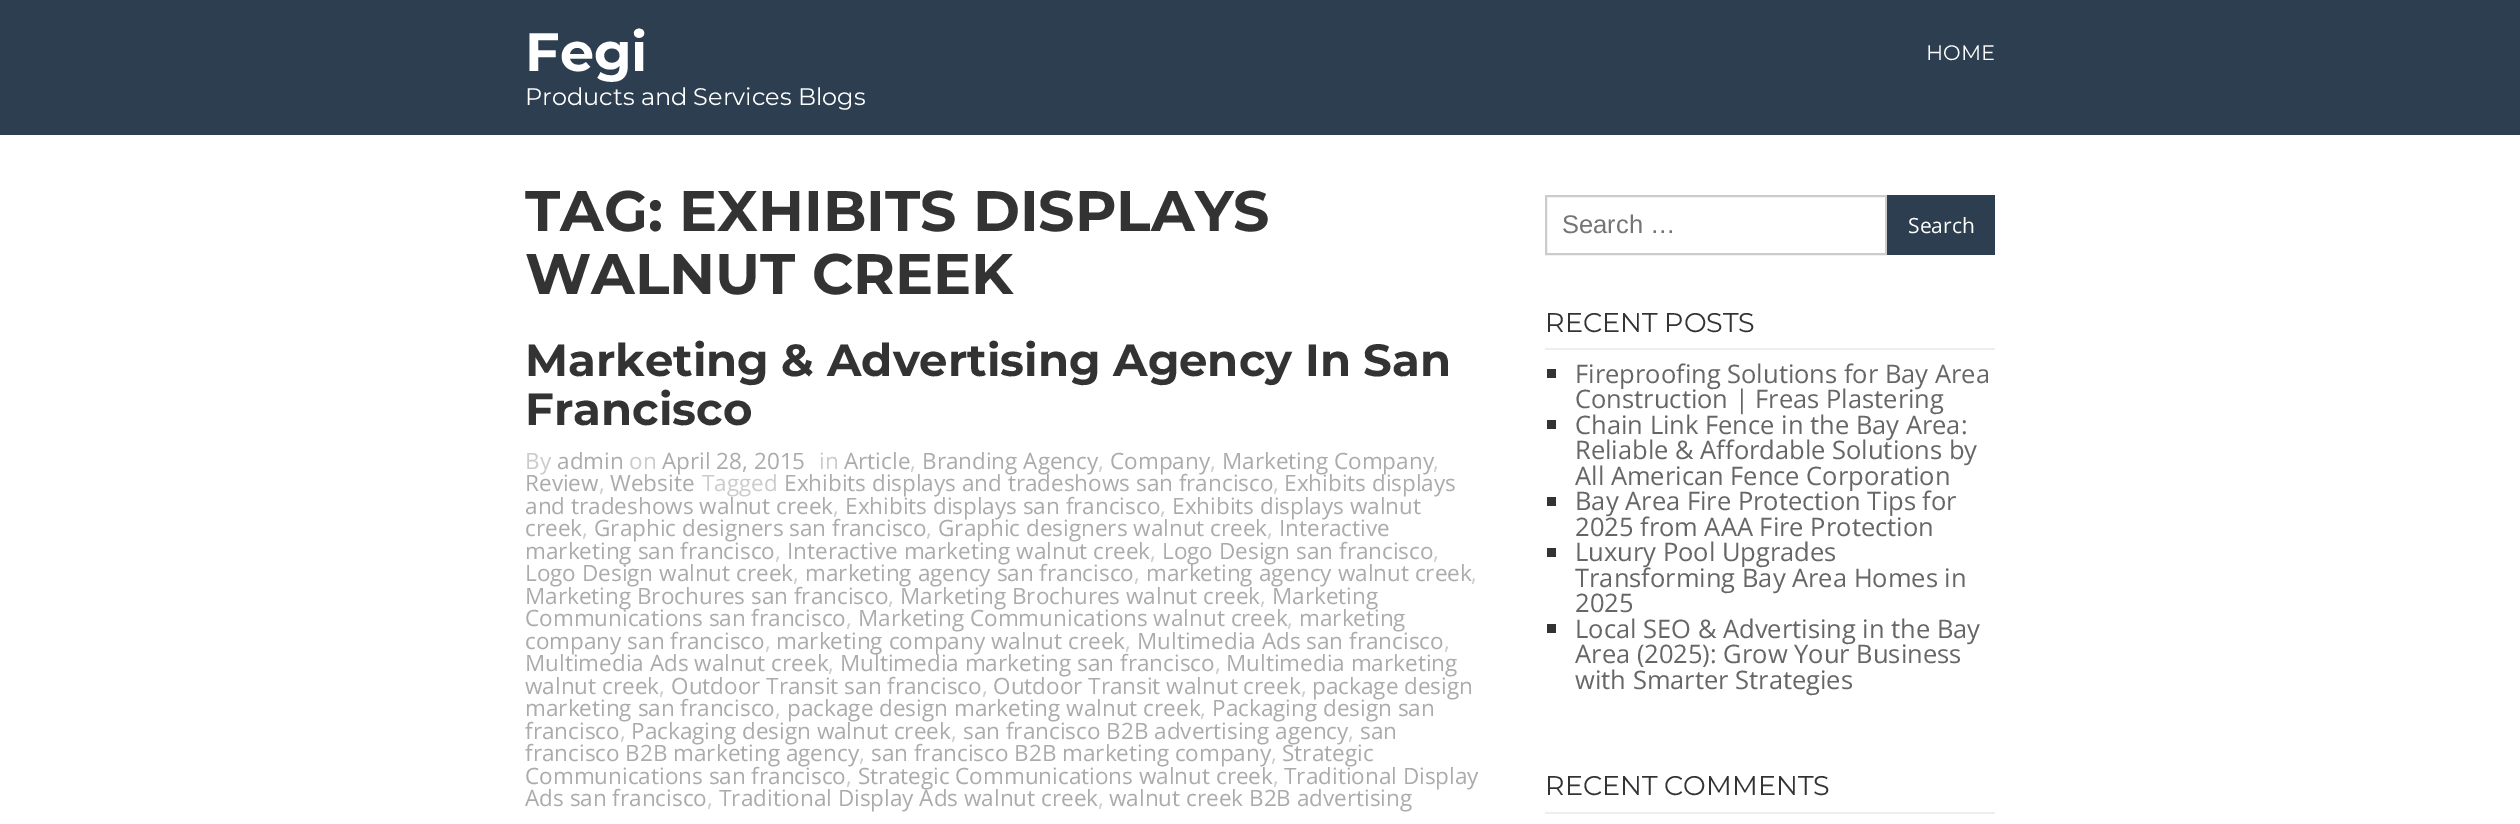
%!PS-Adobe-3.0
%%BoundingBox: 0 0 2520 824
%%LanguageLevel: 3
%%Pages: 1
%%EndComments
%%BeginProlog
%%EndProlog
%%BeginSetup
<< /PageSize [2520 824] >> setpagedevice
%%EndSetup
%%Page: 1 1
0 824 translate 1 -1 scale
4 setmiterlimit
1 setgray
0 0 2520 824 rectfill
0.173 0.243 0.314 setrgbcolor
0 0 2520 135 rectfill
0.8 setgray
2 setlinewidth
1546 196 340 58 rectstroke
0.173 0.243 0.314 setrgbcolor
1887 195 108 60 rectfill
0.933 setgray
1545 348 450 2 rectfill
0.2 setgray
1547 369 9 9 rectfill
1547 420 9 9 rectfill
1547 497 9 9 rectfill
1547 548 9 9 rectfill
1547 624 9 9 rectfill
0.933 setgray
1545 812 450 2 rectfill
/Montserrat-Bold [54 0 0 -54 0 0] selectfont
1 setgray
525 71 moveto (Fegi) show
/Montserrat-Regular [24 0 0 -24 0 0] selectfont
525 105 moveto (Products and Services Blogs) show
/Montserrat-Regular [21 0 0 -21 0 0] selectfont
1926 60 moveto (HOME) show
/Montserrat-Bold [57 0 0 -57 0 0] selectfont
0.2 setgray
525 231 moveto (TAG: EXHIBITS DISPLAYS) show
525 294 moveto (WALNUT CREEK) show
/Montserrat-Bold [45 0 0 -45 0 0] selectfont
525 376 moveto (Marketing & Advertising Agency In San) show
525 425 moveto (Francisco) show
/OpenSans-Regular [22.5 0 0 -22.5 0 0] selectfont
0.796 setgray
525 469 moveto (By) show
0.671 setgray
557 469 moveto (admin) show
0.796 setgray
629 469 moveto (on) show
0.671 setgray
662 469 moveto (April 28, 2015) show
0.796 setgray
819 469 moveto (in) show
0.671 setgray
844 469 moveto (Article) show
0.796 setgray
910 469 moveto (,) show
0.671 setgray
922 469 moveto (Branding Agency) show
0.796 setgray
1098 469 moveto (,) show
0.671 setgray
1110 469 moveto (Company) show
0.796 setgray
1210 469 moveto (,) show
0.671 setgray
1222 469 moveto (Marketing Company) show
0.796 setgray
1433 469 moveto (,) show
0.671 setgray
525 491 moveto (Review) show
0.796 setgray
599 491 moveto (,) show
0.671 setgray
610 491 moveto (Website) show
0.796 setgray
702 491 moveto (Tagged) show
0.671 setgray
784 491 moveto (Exhibits displays and tradeshows san francisco) show
0.796 setgray
1273 491 moveto (,) show
0.671 setgray
1284 491 moveto (Exhibits displays) show
525 514 moveto (and tradeshows walnut creek) show
0.796 setgray
833 514 moveto (,) show
0.671 setgray
845 514 moveto (Exhibits displays san francisco) show
0.796 setgray
1160 514 moveto (,) show
0.671 setgray
1172 514 moveto (Exhibits displays walnut) show
525 536 moveto (creek) show
0.796 setgray
582 536 moveto (,) show
0.671 setgray
594 536 moveto (Graphic designers san francisco) show
0.796 setgray
926 536 moveto (,) show
0.671 setgray
938 536 moveto (Graphic designers walnut creek) show
0.796 setgray
1267 536 moveto (,) show
0.671 setgray
1279 536 moveto (Interactive) show
525 559 moveto (marketing san francisco) show
0.796 setgray
775 559 moveto (,) show
0.671 setgray
787 559 moveto (Interactive marketing walnut creek) show
0.796 setgray
1150 559 moveto (,) show
0.671 setgray
1162 559 moveto (Logo Design san francisco) show
0.796 setgray
1433 559 moveto (,) show
0.671 setgray
525 581 moveto (Logo Design walnut creek) show
0.796 setgray
793 581 moveto (,) show
0.671 setgray
805 581 moveto (marketing agency san francisco) show
0.796 setgray
1134 581 moveto (,) show
0.671 setgray
1146 581 moveto (marketing agency walnut creek) show
0.796 setgray
1471 581 moveto (,) show
0.671 setgray
525 604 moveto (Marketing Brochures san francisco) show
0.796 setgray
888 604 moveto (,) show
0.671 setgray
900 604 moveto (Marketing Brochures walnut creek) show
0.796 setgray
1260 604 moveto (,) show
0.671 setgray
1272 604 moveto (Marketing) show
525 626 moveto (Communications san francisco) show
0.796 setgray
846 626 moveto (,) show
0.671 setgray
858 626 moveto (Marketing Communications walnut creek) show
0.796 setgray
1287 626 moveto (,) show
0.671 setgray
1299 626 moveto (marketing) show
525 649 moveto (company san francisco) show
0.796 setgray
765 649 moveto (,) show
0.671 setgray
776 649 moveto (marketing company walnut creek) show
0.796 setgray
1125 649 moveto (,) show
0.671 setgray
1137 649 moveto (Multimedia Ads san francisco) show
0.796 setgray
1444 649 moveto (,) show
0.671 setgray
525 671 moveto (Multimedia Ads walnut creek) show
0.796 setgray
828 671 moveto (,) show
0.671 setgray
840 671 moveto (Multimedia marketing san francisco) show
0.796 setgray
1215 671 moveto (,) show
0.671 setgray
1226 671 moveto (Multimedia marketing) show
525 694 moveto (walnut creek) show
0.796 setgray
659 694 moveto (,) show
0.671 setgray
671 694 moveto (Outdoor Transit san francisco) show
0.796 setgray
982 694 moveto (,) show
0.671 setgray
993 694 moveto (Outdoor Transit walnut creek) show
0.796 setgray
1301 694 moveto (,) show
0.671 setgray
1312 694 moveto (package design) show
525 716 moveto (marketing san francisco) show
0.796 setgray
775 716 moveto (,) show
0.671 setgray
787 716 moveto (package design marketing walnut creek) show
0.796 setgray
1200 716 moveto (,) show
0.671 setgray
1212 716 moveto (Packaging design san) show
525 739 moveto (francisco) show
0.796 setgray
620 739 moveto (,) show
0.671 setgray
631 739 moveto (Packaging design walnut creek) show
0.796 setgray
951 739 moveto (,) show
0.671 setgray
963 739 moveto (san francisco B2B advertising agency) show
0.796 setgray
1348 739 moveto (,) show
0.671 setgray
1360 739 moveto (san) show
525 761 moveto (francisco B2B marketing agency) show
0.796 setgray
859 761 moveto (,) show
0.671 setgray
871 761 moveto (san francisco B2B marketing company) show
0.796 setgray
1271 761 moveto (,) show
0.671 setgray
1282 761 moveto (Strategic) show
525 784 moveto (Communications san francisco) show
0.796 setgray
846 784 moveto (,) show
0.671 setgray
858 784 moveto (Strategic Communications walnut creek) show
0.796 setgray
1273 784 moveto (,) show
0.671 setgray
1284 784 moveto (Traditional Display) show
525 806 moveto (Ads san francisco) show
0.796 setgray
707 806 moveto (,) show
0.671 setgray
719 806 moveto (Traditional Display Ads walnut creek) show
0.796 setgray
1098 806 moveto (,) show
0.671 setgray
1109 806 moveto (walnut creek B2B advertising) show
/LiberationSans-Regular [25.5 0 0 -25.5 0 0] selectfont
0.459 setgray
1562 233 moveto (Search …) show
/OpenSans-Regular [21 0 0 -21 0 0] selectfont
1 setgray
1908 233 moveto (Search) show
/Montserrat-Regular [27 0 0 -27 0 0] selectfont
0.2 setgray
1545 332 moveto (RECENT POSTS) show
/OpenSans-Regular [25.5 0 0 -25.5 0 0] selectfont
0.4 setgray
1575 383 moveto (Fireproofing Solutions for Bay Area) show
1575 408 moveto (Construction | Freas Plastering) show
1575 434 moveto (Chain Link Fence in the Bay Area:) show
1575 459 moveto (Reliable & Affordable Solutions by) show
1575 485 moveto (All American Fence Corporation) show
1575 510 moveto (Bay Area Fire Protection Tips for) show
1575 536 moveto (2025 from AAA Fire Protection) show
1575 561 moveto (Luxury Pool Upgrades) show
1575 587 moveto (Transforming Bay Area Homes in) show
1575 612 moveto (2025) show
1575 638 moveto (Local SEO & Advertising in the Bay) show
1575 663 moveto (Area \(2025\): Grow Your Business) show
1575 689 moveto (with Smarter Strategies) show
/Montserrat-Regular [27 0 0 -27 0 0] selectfont
0.2 setgray
1545 795 moveto (RECENT COMMENTS) show
showpage
%%EOF
